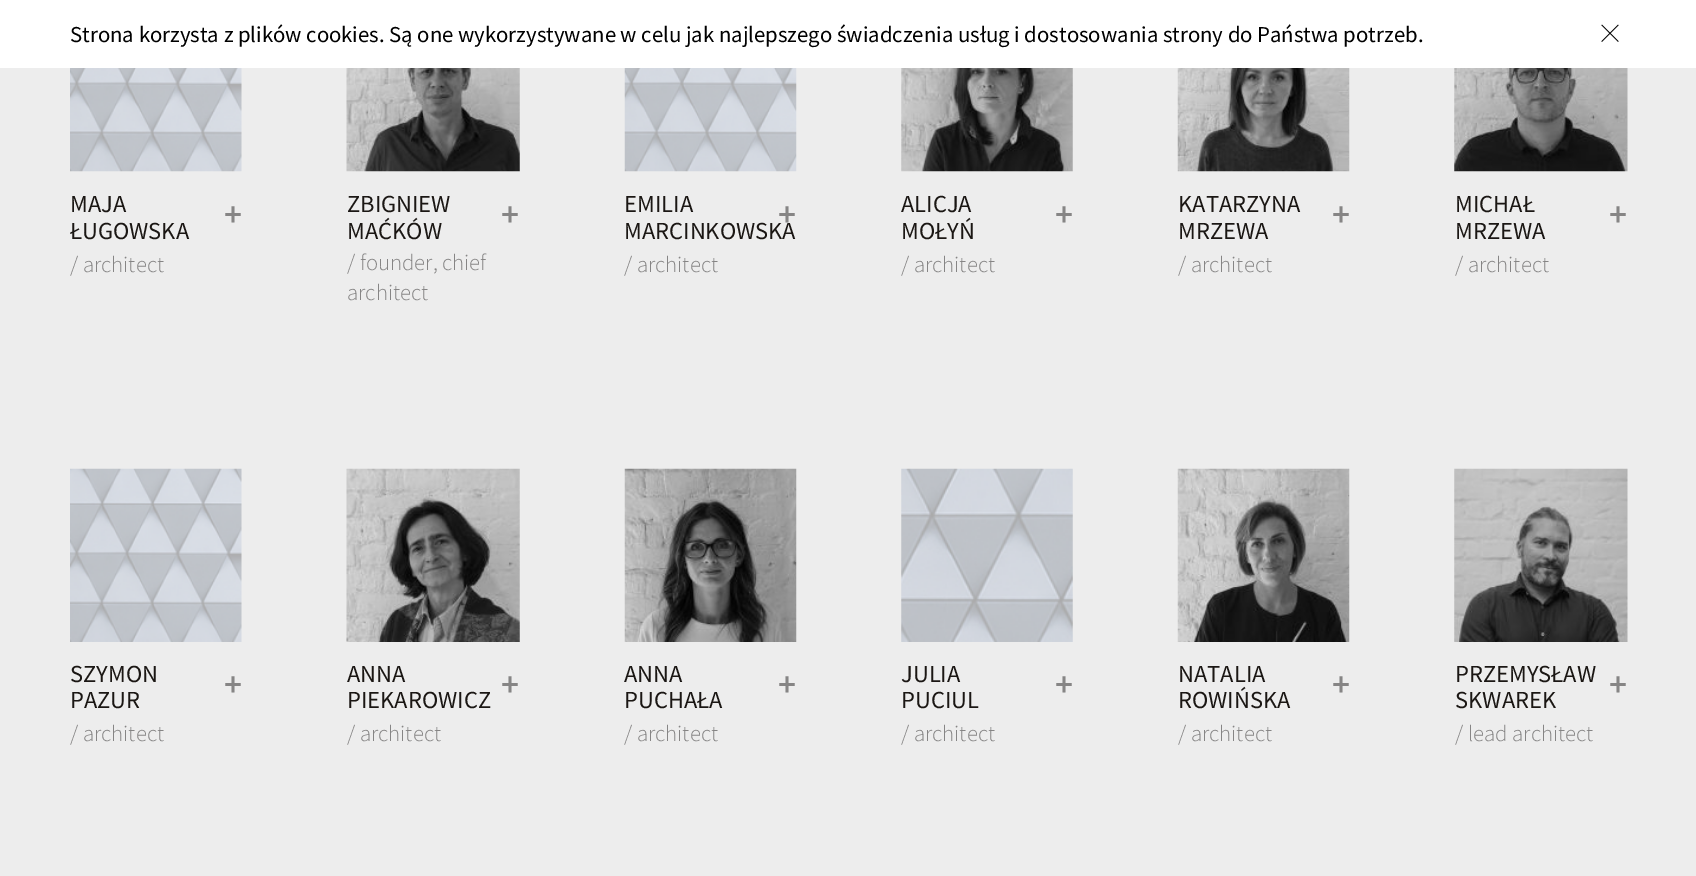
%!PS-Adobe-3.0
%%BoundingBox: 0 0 1696 876
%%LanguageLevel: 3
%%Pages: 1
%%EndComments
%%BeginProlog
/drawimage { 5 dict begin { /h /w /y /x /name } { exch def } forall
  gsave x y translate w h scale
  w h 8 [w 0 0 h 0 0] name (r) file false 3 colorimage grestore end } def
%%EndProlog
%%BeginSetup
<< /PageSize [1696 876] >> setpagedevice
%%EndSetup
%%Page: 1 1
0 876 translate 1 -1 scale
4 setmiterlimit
0.929 setgray
0 0 1696 876 rectfill
1 setgray
0 0 1696 68 rectfill
(images/1.raw) 1601 24 18 18 drawimage
(images/2.raw) 70 68 172 104 drawimage
(images/3.raw) 346 68 174 104 drawimage
(images/4.raw) 624 68 173 104 drawimage
(images/5.raw) 901 68 172 104 drawimage
(images/6.raw) 1177 68 173 104 drawimage
(images/7.raw) 1454 68 174 104 drawimage
(images/8.raw) 70 468 172 174 drawimage
(images/9.raw) 346 468 174 174 drawimage
(images/10.raw) 624 468 173 174 drawimage
(images/11.raw) 901 468 172 174 drawimage
(images/12.raw) 1177 468 173 174 drawimage
(images/13.raw) 1454 468 174 174 drawimage
/SourceSansPro-Regular [22.75 0 0 -22.75 0 0] selectfont
0 setgray
70 42 moveto (Strona korzysta z plików cookies. Są one wykorzystywane w celu jak najlepszego świadczenia usług i dostosowania strony do Państwa potrzeb.) show
/SourceSansPro-Regular [24.5 0 0 -24.5 0 0] selectfont
0.106 0.09 0.078 setrgbcolor
70 212 moveto (MAJA) show
70 239 moveto (ŁUGOWSKA) show
/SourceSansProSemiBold-SemiBold [35 0 0 -35 0 0] selectfont
0.525 0.522 0.522 setrgbcolor
224 226 moveto (+) show
/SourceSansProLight-Light [22.75 0 0 -22.75 0 0] selectfont
70 272 moveto (/ architect) show
/SourceSansPro-Regular [24.5 0 0 -24.5 0 0] selectfont
0.106 0.09 0.078 setrgbcolor
347 212 moveto (ZBIGNIEW) show
347 239 moveto (MAĆKÓW) show
/SourceSansProSemiBold-SemiBold [35 0 0 -35 0 0] selectfont
0.525 0.522 0.522 setrgbcolor
501 226 moveto (+) show
/SourceSansProLight-Light [22.75 0 0 -22.75 0 0] selectfont
347 270 moveto (/ founder, chief) show
347 300 moveto (architect) show
/SourceSansPro-Regular [24.5 0 0 -24.5 0 0] selectfont
0.106 0.09 0.078 setrgbcolor
624 212 moveto (EMILIA) show
624 239 moveto (MARCINKOWSKA) show
/SourceSansProSemiBold-SemiBold [35 0 0 -35 0 0] selectfont
0.525 0.522 0.522 setrgbcolor
778 226 moveto (+) show
/SourceSansProLight-Light [22.75 0 0 -22.75 0 0] selectfont
624 272 moveto (/ architect) show
/SourceSansPro-Regular [24.5 0 0 -24.5 0 0] selectfont
0.106 0.09 0.078 setrgbcolor
901 212 moveto (ALICJA) show
901 239 moveto (MOŁYŃ) show
/SourceSansProSemiBold-SemiBold [35 0 0 -35 0 0] selectfont
0.525 0.522 0.522 setrgbcolor
1055 226 moveto (+) show
/SourceSansProLight-Light [22.75 0 0 -22.75 0 0] selectfont
901 272 moveto (/ architect) show
/SourceSansPro-Regular [24.5 0 0 -24.5 0 0] selectfont
0.106 0.09 0.078 setrgbcolor
1178 212 moveto (KATARZYNA) show
1178 239 moveto (MRZEWA) show
/SourceSansProSemiBold-SemiBold [35 0 0 -35 0 0] selectfont
0.525 0.522 0.522 setrgbcolor
1332 226 moveto (+) show
/SourceSansProLight-Light [22.75 0 0 -22.75 0 0] selectfont
1178 272 moveto (/ architect) show
/SourceSansPro-Regular [24.5 0 0 -24.5 0 0] selectfont
0.106 0.09 0.078 setrgbcolor
1455 212 moveto (MICHAŁ) show
1455 239 moveto (MRZEWA) show
/SourceSansProSemiBold-SemiBold [35 0 0 -35 0 0] selectfont
0.525 0.522 0.522 setrgbcolor
1609 226 moveto (+) show
/SourceSansProLight-Light [22.75 0 0 -22.75 0 0] selectfont
1455 272 moveto (/ architect) show
/SourceSansPro-Regular [24.5 0 0 -24.5 0 0] selectfont
0.106 0.09 0.078 setrgbcolor
70 682 moveto (SZYMON) show
70 708 moveto (PAZUR) show
/SourceSansProSemiBold-SemiBold [35 0 0 -35 0 0] selectfont
0.525 0.522 0.522 setrgbcolor
224 696 moveto (+) show
/SourceSansProLight-Light [22.75 0 0 -22.75 0 0] selectfont
70 741 moveto (/ architect) show
/SourceSansPro-Regular [24.5 0 0 -24.5 0 0] selectfont
0.106 0.09 0.078 setrgbcolor
347 682 moveto (ANNA) show
347 708 moveto (PIEKAROWICZ) show
/SourceSansProSemiBold-SemiBold [35 0 0 -35 0 0] selectfont
0.525 0.522 0.522 setrgbcolor
501 696 moveto (+) show
/SourceSansProLight-Light [22.75 0 0 -22.75 0 0] selectfont
347 741 moveto (/ architect) show
/SourceSansPro-Regular [24.5 0 0 -24.5 0 0] selectfont
0.106 0.09 0.078 setrgbcolor
624 682 moveto (ANNA) show
624 708 moveto (PUCHAŁA) show
/SourceSansProSemiBold-SemiBold [35 0 0 -35 0 0] selectfont
0.525 0.522 0.522 setrgbcolor
778 696 moveto (+) show
/SourceSansProLight-Light [22.75 0 0 -22.75 0 0] selectfont
624 741 moveto (/ architect) show
/SourceSansPro-Regular [24.5 0 0 -24.5 0 0] selectfont
0.106 0.09 0.078 setrgbcolor
901 682 moveto (JULIA) show
901 708 moveto (PUCIUL) show
/SourceSansProSemiBold-SemiBold [35 0 0 -35 0 0] selectfont
0.525 0.522 0.522 setrgbcolor
1055 696 moveto (+) show
/SourceSansProLight-Light [22.75 0 0 -22.75 0 0] selectfont
901 741 moveto (/ architect) show
/SourceSansPro-Regular [24.5 0 0 -24.5 0 0] selectfont
0.106 0.09 0.078 setrgbcolor
1178 682 moveto (NATALIA) show
1178 708 moveto (ROWIŃSKA) show
/SourceSansProSemiBold-SemiBold [35 0 0 -35 0 0] selectfont
0.525 0.522 0.522 setrgbcolor
1332 696 moveto (+) show
/SourceSansProLight-Light [22.75 0 0 -22.75 0 0] selectfont
1178 741 moveto (/ architect) show
/SourceSansPro-Regular [24.5 0 0 -24.5 0 0] selectfont
0.106 0.09 0.078 setrgbcolor
1455 682 moveto (PRZEMYSŁAW) show
1455 708 moveto (SKWAREK) show
/SourceSansProSemiBold-SemiBold [35 0 0 -35 0 0] selectfont
0.525 0.522 0.522 setrgbcolor
1609 696 moveto (+) show
/SourceSansProLight-Light [22.75 0 0 -22.75 0 0] selectfont
1455 741 moveto (/ lead architect) show
showpage
%%EOF
